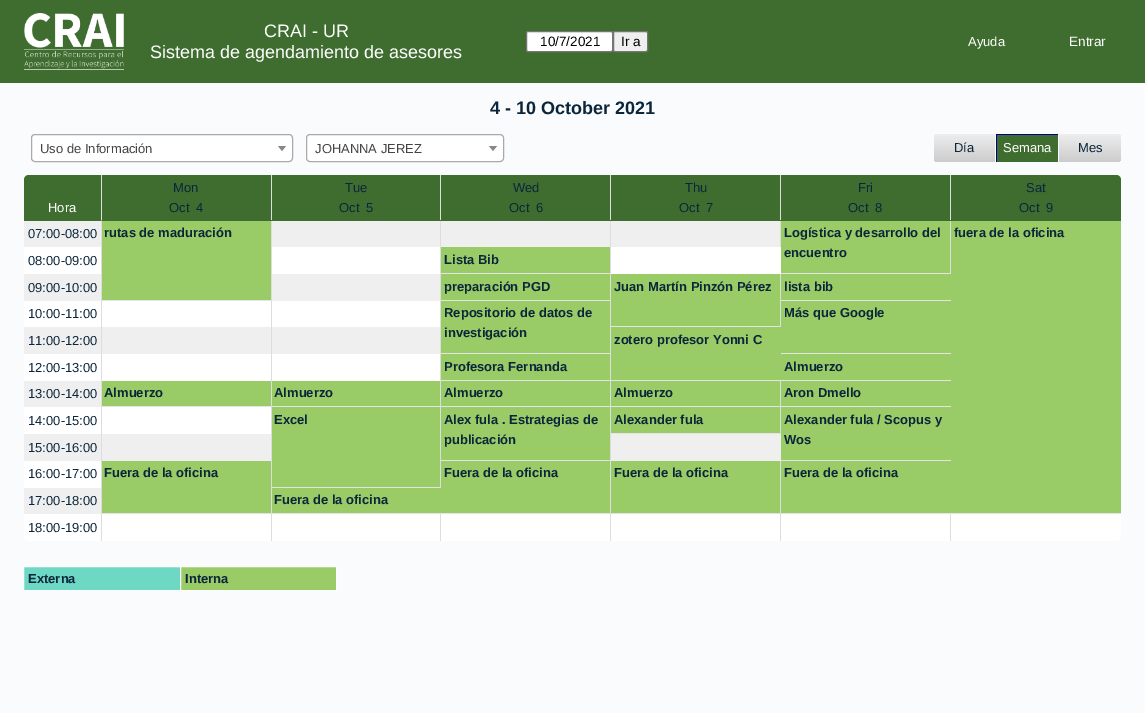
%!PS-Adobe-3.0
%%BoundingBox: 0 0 1145 713
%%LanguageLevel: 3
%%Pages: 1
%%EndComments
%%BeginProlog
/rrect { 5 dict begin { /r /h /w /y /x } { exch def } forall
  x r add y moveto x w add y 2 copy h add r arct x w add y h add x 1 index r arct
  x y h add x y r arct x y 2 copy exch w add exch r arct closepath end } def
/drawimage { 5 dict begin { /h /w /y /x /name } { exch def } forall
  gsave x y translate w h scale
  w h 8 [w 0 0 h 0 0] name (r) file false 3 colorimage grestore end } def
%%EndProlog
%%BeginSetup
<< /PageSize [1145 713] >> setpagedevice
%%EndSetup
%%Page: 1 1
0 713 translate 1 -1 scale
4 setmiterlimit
0.976 0.984 0.988 setrgbcolor
0 0 1145 713 rectfill
0.247 0.427 0.188 setrgbcolor
0 0 1145 83 rectfill
(images/1.raw) 24 13 100 57 drawimage
1 setgray
526.5 31.5 86 20 1.5 rrect gsave fill grestore
0.463 setgray
stroke
0.937 setgray
613.5 31.5 34 20 1.5 rrect gsave fill grestore
0.463 setgray
stroke
1 setgray
31.5 134.5 261 27 3.5 rrect gsave fill grestore
0.667 setgray
stroke
0.533 setgray
newpath 278 146 moveto 286 146 lineto 282 151 lineto closepath fill
1 setgray
306.5 134.5 197 27 3.5 rrect gsave fill grestore
0.667 setgray
stroke
0.533 setgray
newpath 489 146 moveto 497 146 lineto 493 151 lineto closepath fill
gsave newpath 939 134 moveto 996 134 lineto 996 162 lineto 939 162 lineto 936 162 934 160 934 157 curveto 934 139 lineto 934 136 936 134 939 134 curveto closepath clip newpath
<< /ShadingType 2 /ColorSpace /DeviceRGB /Coords [965 134 965 162] /Extend [true true] /Function << /FunctionType 2 /Domain [0 1] /C0 [0.933 0.933 0.933] /C1 [0.8 0.8 0.8] /N 1 >> >> shfill grestore
0.976 0.984 0.988 setrgbcolor
995 134 1 28 rectfill
0.247 0.427 0.188 setrgbcolor
997 135 61 27 rectfill
gsave
996 134 62 28 rectclip
0 0 0.545 setrgbcolor
newpath 897 35 moveto 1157 35 lineto 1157 261 lineto 897 261 lineto closepath 997 135 moveto 1059 135 lineto 1059 163 lineto 997 163 lineto closepath eofill
grestore
gsave newpath 1059 134 moveto 1116 134 lineto 1119 134 1121 136 1121 139 curveto 1121 157 lineto 1121 160 1119 162 1116 162 curveto 1059 162 lineto closepath clip newpath
<< /ShadingType 2 /ColorSpace /DeviceRGB /Coords [1090 134 1090 162] /Extend [true true] /Function << /FunctionType 2 /Domain [0 1] /C0 [0.933 0.933 0.933] /C1 [0.8 0.8 0.8] /N 1 >> >> shfill grestore
newpath 29 175 moveto 101 175 lineto 101 220 lineto 24 220 lineto 24 180 lineto 24 177 26 175 29 175 curveto closepath fill
0.867 setgray
newpath 102 175 moveto 101 175 lineto 101 220 lineto 102 221 lineto closepath fill
0.247 0.427 0.188 setrgbcolor
newpath 102 221 moveto 101 220 lineto 24 220 lineto 24 221 lineto closepath fill
102 175 169 45 rectfill
0.867 setgray
271 175 1 366 rectfill
440 175 1 313 rectfill
610 175 1 366 rectfill
780 175 1 72 rectfill
950 175 1 99 rectfill
0.247 0.427 0.188 setrgbcolor
102 220 1019 1 rectfill
272 175 168 45 rectfill
441 175 169 45 rectfill
611 175 169 45 rectfill
781 175 169 45 rectfill
newpath 951 175 moveto 1116 175 lineto 1119 175 1121 177 1121 180 curveto 1121 220 lineto 951 220 lineto closepath fill
0.937 setgray
24 221 77 26 rectfill
0.867 setgray
101 221 1 320 rectfill
0.6 0.8 0.4 setrgbcolor
102 221 169 79 rectfill
0.894 setgray
102 300 169 1 rectfill
0.937 setgray
272 221 168 26 rectfill
441 221 169 26 rectfill
611 221 169 26 rectfill
0.6 0.8 0.4 setrgbcolor
781 221 169 52 rectfill
0.894 setgray
781 273 169 1 rectfill
0.6 0.8 0.4 setrgbcolor
951 221 170 292 rectfill
0.894 setgray
781 513 340 1 rectfill
1 setgray
24 247 77 27 rectfill
272 247 168 27 rectfill
0.6 0.8 0.4 setrgbcolor
441 247 169 26 rectfill
0.894 setgray
441 273 169 1 rectfill
1 setgray
611 247 170 27 rectfill
0.937 setgray
24 274 77 27 rectfill
272 274 168 27 rectfill
0.6 0.8 0.4 setrgbcolor
441 274 169 26 rectfill
0.894 setgray
441 300 169 1 rectfill
0.867 setgray
780 274 1 53 rectfill
0.6 0.8 0.4 setrgbcolor
611 274 169 52 rectfill
0.894 setgray
611 326 169 1 rectfill
0.6 0.8 0.4 setrgbcolor
781 274 170 26 rectfill
0.894 setgray
781 300 170 1 rectfill
1 setgray
24 301 77 26 rectfill
102 301 169 26 rectfill
272 301 168 26 rectfill
0.6 0.8 0.4 setrgbcolor
441 301 169 52 rectfill
0.894 setgray
441 353 169 1 rectfill
0.6 0.8 0.4 setrgbcolor
781 301 170 52 rectfill
0.894 setgray
781 353 170 1 rectfill
0.937 setgray
24 327 77 27 rectfill
102 327 169 27 rectfill
272 327 168 27 rectfill
0.6 0.8 0.4 setrgbcolor
611 327 170 53 rectfill
0.894 setgray
611 380 340 1 rectfill
1 setgray
24 354 77 27 rectfill
102 354 169 27 rectfill
272 354 168 27 rectfill
0.6 0.8 0.4 setrgbcolor
441 354 169 26 rectfill
0.894 setgray
441 380 169 1 rectfill
0.6 0.8 0.4 setrgbcolor
781 354 170 26 rectfill
0.937 setgray
24 381 77 26 rectfill
0.6 0.8 0.4 setrgbcolor
102 381 169 25 rectfill
0.894 setgray
102 406 169 1 rectfill
0.6 0.8 0.4 setrgbcolor
272 381 168 25 rectfill
0.894 setgray
272 406 168 1 rectfill
0.6 0.8 0.4 setrgbcolor
441 381 169 25 rectfill
0.894 setgray
441 406 169 1 rectfill
0.867 setgray
780 381 1 53 rectfill
0.6 0.8 0.4 setrgbcolor
611 381 169 25 rectfill
0.894 setgray
611 406 169 1 rectfill
0.6 0.8 0.4 setrgbcolor
781 381 170 25 rectfill
0.894 setgray
781 406 170 1 rectfill
1 setgray
24 407 77 27 rectfill
102 407 169 27 rectfill
0.6 0.8 0.4 setrgbcolor
272 407 168 80 rectfill
0.894 setgray
272 487 168 1 rectfill
0.6 0.8 0.4 setrgbcolor
441 407 169 53 rectfill
0.894 setgray
441 460 169 1 rectfill
0.6 0.8 0.4 setrgbcolor
611 407 169 26 rectfill
0.894 setgray
611 433 169 1 rectfill
0.6 0.8 0.4 setrgbcolor
781 407 170 53 rectfill
0.894 setgray
781 460 170 1 rectfill
0.937 setgray
24 434 77 27 rectfill
102 434 169 27 rectfill
611 434 170 27 rectfill
1 setgray
24 461 77 27 rectfill
0.6 0.8 0.4 setrgbcolor
102 461 169 52 rectfill
0.894 setgray
102 513 169 1 rectfill
0.6 0.8 0.4 setrgbcolor
441 461 169 52 rectfill
0.894 setgray
272 513 338 1 rectfill
0.867 setgray
780 461 1 80 rectfill
0.6 0.8 0.4 setrgbcolor
611 461 169 52 rectfill
0.894 setgray
611 513 169 1 rectfill
0.6 0.8 0.4 setrgbcolor
781 461 170 52 rectfill
0.937 setgray
24 488 77 26 rectfill
0.6 0.8 0.4 setrgbcolor
272 488 169 25 rectfill
1 setgray
newpath 24 514 moveto 101 514 lineto 101 541 lineto 29 541 lineto 26 541 24 539 24 536 curveto closepath fill
102 514 169 27 rectfill
272 514 168 27 rectfill
0.867 setgray
440 514 1 27 rectfill
1 setgray
441 514 169 27 rectfill
611 514 169 27 rectfill
781 514 169 27 rectfill
0.867 setgray
950 514 1 27 rectfill
1 setgray
newpath 951 514 moveto 1121 514 lineto 1121 536 lineto 1121 539 1119 541 1116 541 curveto 951 541 lineto closepath fill
0.427 0.851 0.769 setrgbcolor
24 567 156 23 rectfill
gsave
24 83 1097 508 rectclip
1 setgray
23.5 566.5 157 24 rectstroke
grestore
0.6 0.8 0.4 setrgbcolor
newpath 180.5 566.5 moveto 336.5 566.5 lineto 336.5 590.5 lineto 180.5 590.5 lineto closepath gsave fill grestore
1 setgray
stroke
/LiberationSans-Regular [18 0 0 -18 0 0] selectfont
264 37 moveto (CRAI - UR) show
150 58 moveto (Sistema de agendamiento de asesores) show
/LiberationSans-Regular [13.5 0 0 -13.5 0 0] selectfont
0 setgray
540 46 moveto (10/7/2021) show
621 46 moveto (Ir a) show
/LiberationSans-Regular [13 0 0 -13 0 0] selectfont
1 setgray
968 46 moveto (Ayuda) show
/LiberationSans-Regular [13.5 0 0 -13.5 0 0] selectfont
1069 46 moveto (Entrar) show
/LiberationSans-Bold [18 0 0 -18 0 0] selectfont
0.043 0.149 0.231 setrgbcolor
490 114 moveto (4 - 10 October 2021) show
/LiberationSans-Regular [13 0 0 -13 0 0] selectfont
0.267 setgray
40 153 moveto (Uso de Información) show
315 153 moveto (JOHANNA JEREZ) show
0.043 0.149 0.231 setrgbcolor
954 152 moveto (Día) show
1 setgray
1003 152 moveto (Semana) show
0.043 0.149 0.231 setrgbcolor
1078 152 moveto (Mes) show
1 setgray
48 212 moveto (Hora) show
0.043 0.149 0.231 setrgbcolor
173 192 moveto (Mon) show
169 212 moveto (Oct  4) show
345 192 moveto (Tue) show
339 212 moveto (Oct  5) show
513 192 moveto (Wed) show
509 212 moveto (Oct  6) show
685 192 moveto (Thu) show
679 212 moveto (Oct  7) show
858 192 moveto (Fri) show
848 212 moveto (Oct  8) show
1026 192 moveto (Sat) show
1019 212 moveto (Oct  9) show
28 238 moveto (07:00-08:00) show
/LiberationSans-Bold [13 0 0 -13 0 0] selectfont
104 237 moveto (rutas de maduración) show
784 237 moveto (Logística y desarrollo del) show
784 257 moveto (encuentro) show
954 237 moveto (fuera de la oficina) show
/LiberationSans-Regular [13 0 0 -13 0 0] selectfont
28 265 moveto (08:00-09:00) show
/LiberationSans-Bold [13 0 0 -13 0 0] selectfont
444 264 moveto (Lista Bib) show
/LiberationSans-Regular [13 0 0 -13 0 0] selectfont
28 292 moveto (09:00-10:00) show
/LiberationSans-Bold [13 0 0 -13 0 0] selectfont
444 291 moveto (preparación PGD) show
614 291 moveto (Juan Martín Pinzón Pérez) show
784 291 moveto (lista bib) show
/LiberationSans-Regular [13 0 0 -13 0 0] selectfont
28 318 moveto (10:00-11:00) show
/LiberationSans-Bold [13 0 0 -13 0 0] selectfont
444 317 moveto (Repositorio de datos de) show
444 337 moveto (investigación) show
784 317 moveto (Más que Google) show
/LiberationSans-Regular [13 0 0 -13 0 0] selectfont
28 345 moveto (11:00-12:00) show
/LiberationSans-Bold [13 0 0 -13 0 0] selectfont
614 344 moveto (zotero profesor Yonni C) show
/LiberationSans-Regular [13 0 0 -13 0 0] selectfont
28 372 moveto (12:00-13:00) show
/LiberationSans-Bold [13 0 0 -13 0 0] selectfont
444 371 moveto (Profesora Fernanda) show
784 371 moveto (Almuerzo) show
/LiberationSans-Regular [13 0 0 -13 0 0] selectfont
28 398 moveto (13:00-14:00) show
/LiberationSans-Bold [13 0 0 -13 0 0] selectfont
104 397 moveto (Almuerzo) show
274 397 moveto (Almuerzo) show
444 397 moveto (Almuerzo) show
614 397 moveto (Almuerzo) show
784 397 moveto (Aron Dmello) show
/LiberationSans-Regular [13 0 0 -13 0 0] selectfont
28 425 moveto (14:00-15:00) show
/LiberationSans-Bold [13 0 0 -13 0 0] selectfont
274 424 moveto (Excel) show
444 424 moveto (Alex fula . Estrategias de) show
444 444 moveto (publicación) show
614 424 moveto (Alexander fula) show
784 424 moveto (Alexander fula / Scopus y) show
784 444 moveto (Wos) show
/LiberationSans-Regular [13 0 0 -13 0 0] selectfont
28 452 moveto (15:00-16:00) show
28 478 moveto (16:00-17:00) show
/LiberationSans-Bold [13 0 0 -13 0 0] selectfont
104 477 moveto (Fuera de la oficina) show
444 477 moveto (Fuera de la oficina) show
614 477 moveto (Fuera de la oficina) show
784 477 moveto (Fuera de la oficina) show
/LiberationSans-Regular [13 0 0 -13 0 0] selectfont
28 505 moveto (17:00-18:00) show
/LiberationSans-Bold [13 0 0 -13 0 0] selectfont
274 504 moveto (Fuera de la oficina) show
/LiberationSans-Regular [13 0 0 -13 0 0] selectfont
28 532 moveto (18:00-19:00) show
/LiberationSans-Bold [13 0 0 -13 0 0] selectfont
28 583 moveto (Externa) show
185 583 moveto (Interna) show
showpage
%%EOF
